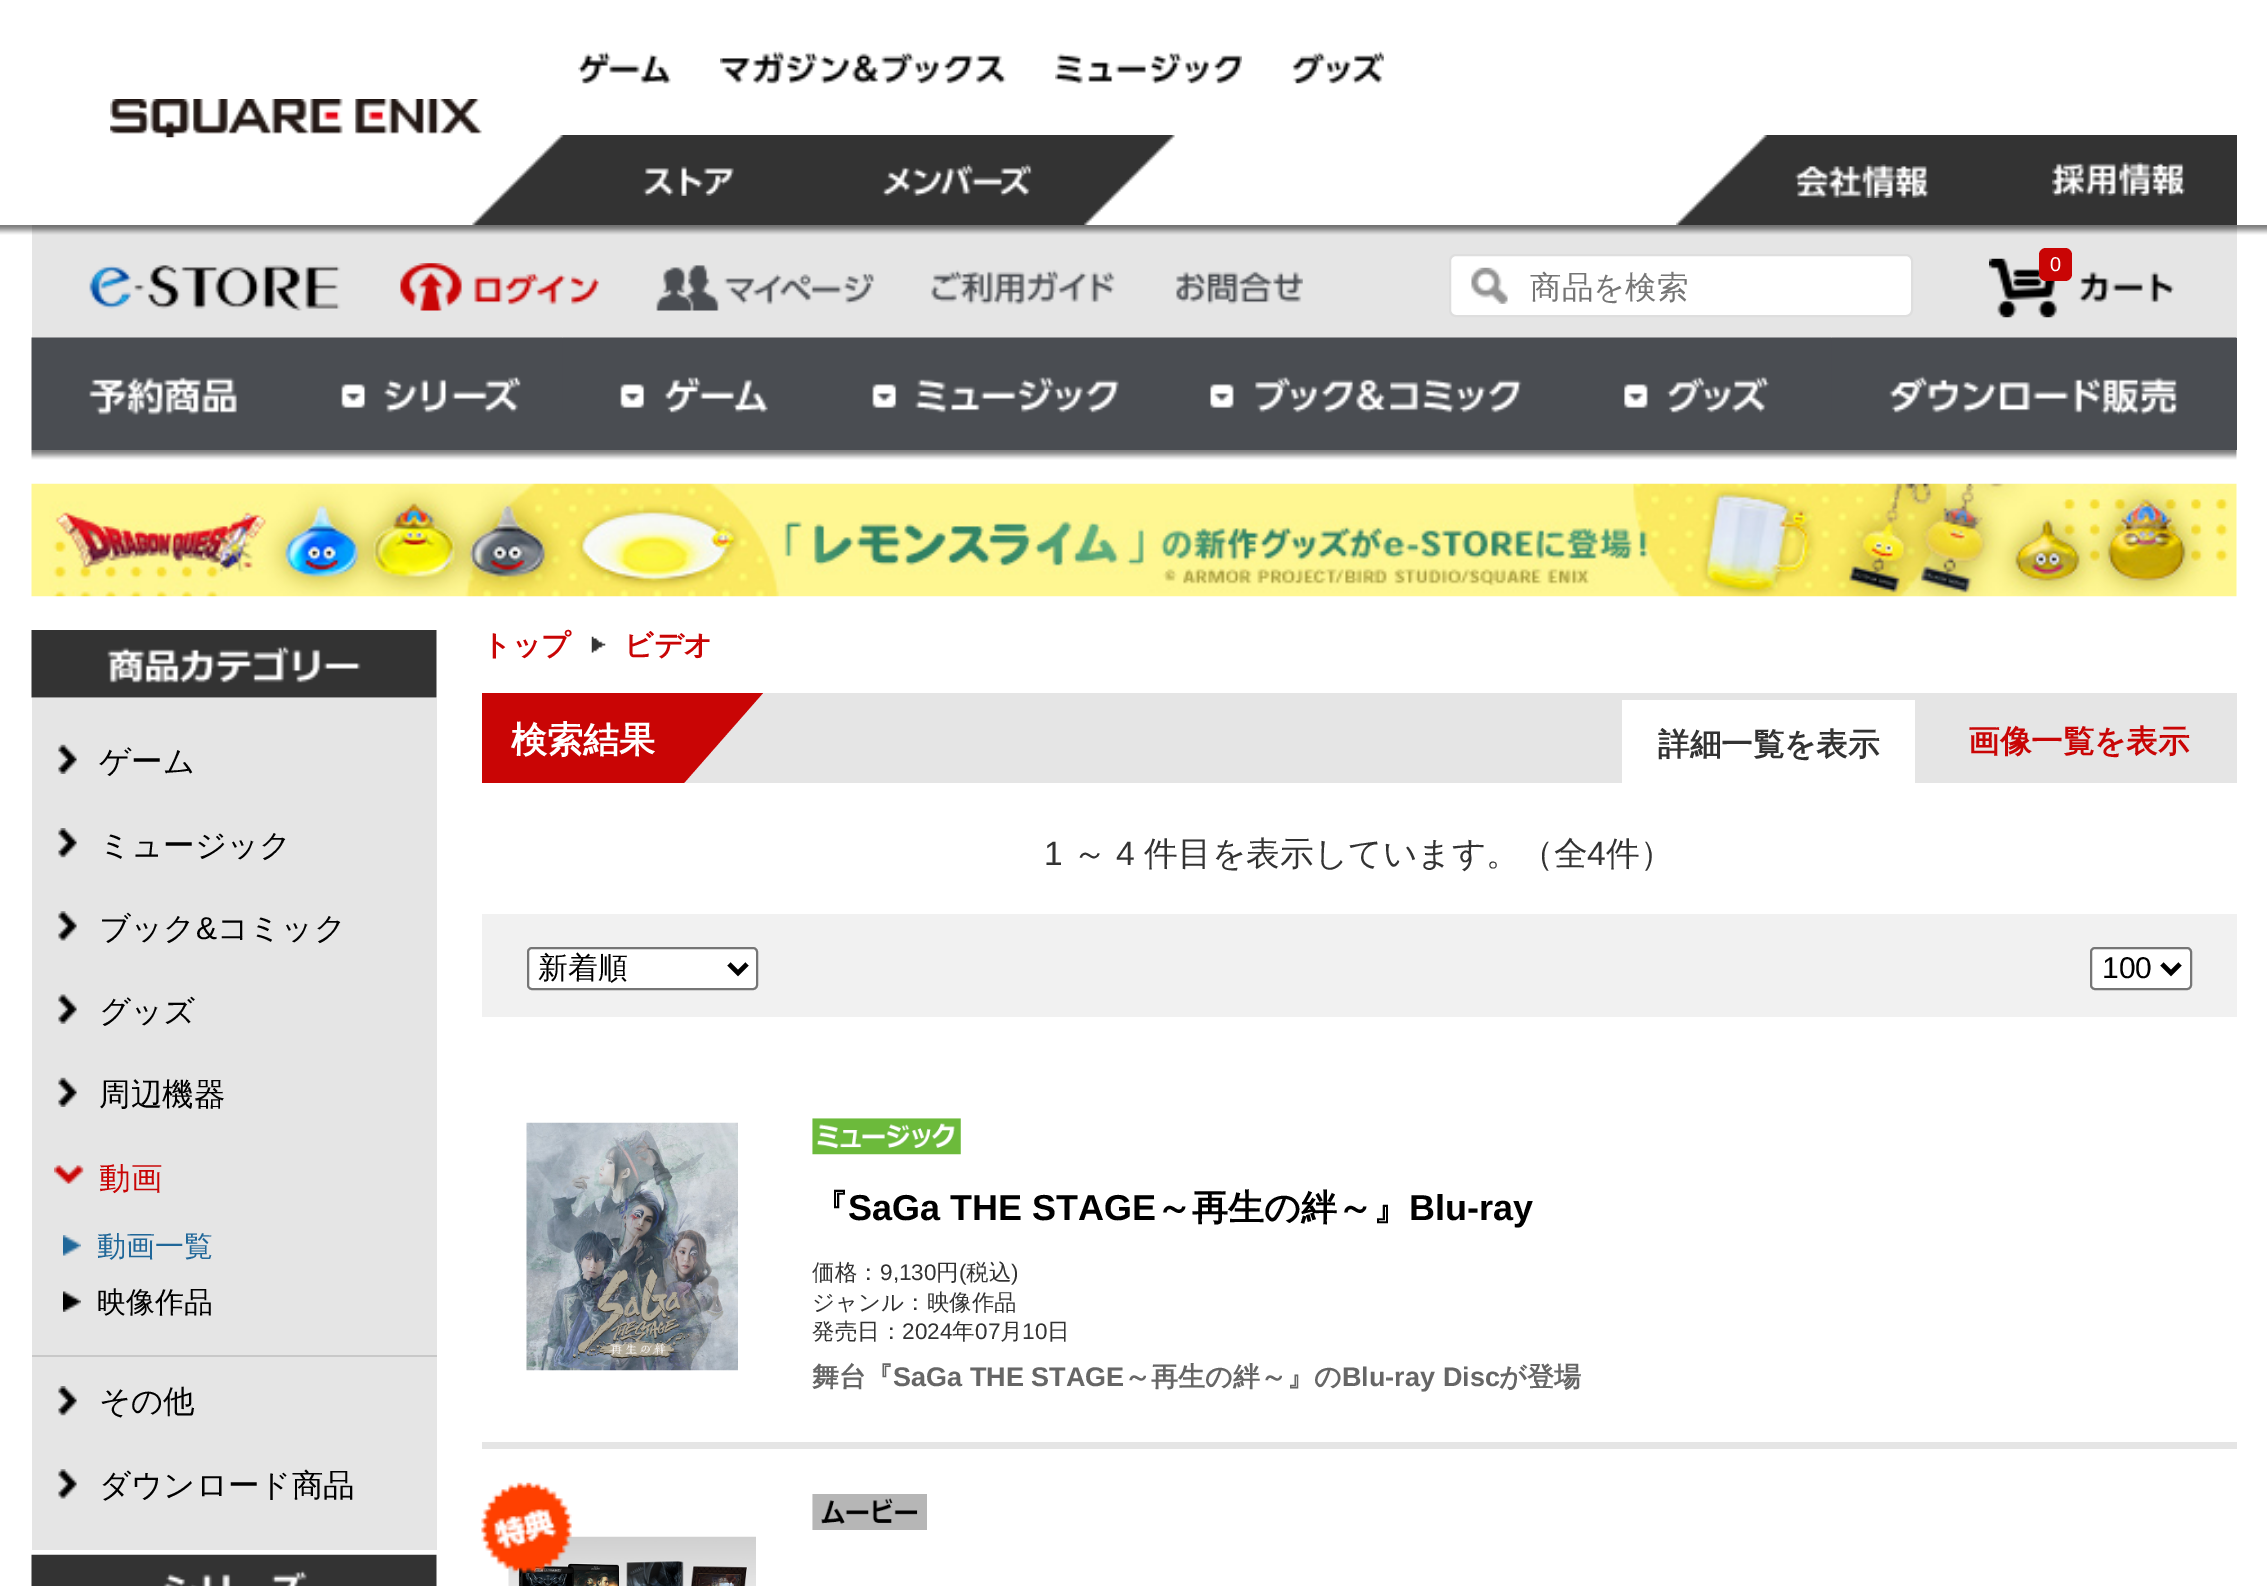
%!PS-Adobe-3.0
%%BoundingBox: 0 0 2267 1586
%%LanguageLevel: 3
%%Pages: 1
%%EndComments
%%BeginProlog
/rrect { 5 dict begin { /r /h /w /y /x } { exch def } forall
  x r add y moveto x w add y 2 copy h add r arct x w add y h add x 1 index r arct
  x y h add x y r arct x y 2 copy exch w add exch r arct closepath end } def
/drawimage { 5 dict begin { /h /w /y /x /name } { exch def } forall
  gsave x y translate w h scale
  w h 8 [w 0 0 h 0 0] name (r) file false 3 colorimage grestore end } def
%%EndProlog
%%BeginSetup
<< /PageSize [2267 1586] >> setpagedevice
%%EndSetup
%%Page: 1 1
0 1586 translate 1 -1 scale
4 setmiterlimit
1 setgray
0 0 2267 1586 rectfill
(images/1.raw) 578 51 93 33 drawimage
(images/2.raw) 720 51 286 33 drawimage
(images/3.raw) 1055 52 187 32 drawimage
(images/4.raw) 1291 51 93 33 drawimage
(images/5.raw) 110 99 372 39 drawimage
(images/6.raw) 472 135 349 90 drawimage
(images/7.raw) 643 166 91 30 drawimage
(images/8.raw) 821 135 354 90 drawimage
(images/9.raw) 882 164 151 32 drawimage
(images/10.raw) 1676 135 324 90 drawimage
(images/11.raw) 1795 164 134 34 drawimage
0.2 setgray
2000 135 237 90 rectfill
(images/12.raw) 2052 162 133 34 drawimage
0.898 setgray
32 225 2205 113 rectfill
(images/13.raw) 0 225 2267 10 drawimage
(images/14.raw) 89 265 252 46 drawimage
(images/15.raw) 400 263 199 48 drawimage
(images/16.raw) 656 265 219 46 drawimage
(images/17.raw) 931 269 184 36 drawimage
(images/18.raw) 1176 271 127 34 drawimage
1 setgray
1450 255 462 61 6 rrect gsave fill grestore
0.871 setgray
2 setlinewidth
stroke
(images/19.raw) 1471 267 37 37 drawimage
(images/20.raw) 1989 258 185 60 drawimage
0.788 0.02 0.02 setrgbcolor
2039 248 33 33 7 rrect fill
0.29 0.302 0.322 setrgbcolor
297 338 1940 112 rectfill
(images/21.raw) 31 337 266 113 drawimage
(images/22.raw) 297 337 266 76 drawimage
(images/23.raw) 562 337 266 76 drawimage
(images/24.raw) 828 337 333 76 drawimage
(images/25.raw) 1161 337 405 76 drawimage
(images/26.raw) 1566 337 266 76 drawimage
(images/27.raw) 1831 337 406 78 drawimage
(images/28.raw) 31 450 2206 10 drawimage
(images/29.raw) 31 483 2206 114 drawimage
(images/30.raw) 31 630 406 68 drawimage
0.898 setgray
32 698 405 852 rectfill
(images/31.raw) 58 744 19 30 drawimage
(images/32.raw) 58 828 19 30 drawimage
(images/33.raw) 58 911 19 30 drawimage
(images/34.raw) 58 994 19 30 drawimage
(images/31.raw) 58 1077 19 30 drawimage
(images/35.raw) 54 1165 30 19 drawimage
0.784 setgray
32 1355 405 2 rectfill
(images/36.raw) 63 1235 18 21 drawimage
(images/37.raw) 63 1291 18 21 drawimage
(images/38.raw) 58 1386 19 30 drawimage
(images/33.raw) 58 1469 19 30 drawimage
(images/39.raw) 31 1554 406 32 drawimage
(images/40.raw) 591 636 15 17 drawimage
0.898 setgray
684 693 1553 90 rectfill
0.788 0.02 0.02 setrgbcolor
482 693 202 90 rectfill
newpath 684 693 moveto 763 693 lineto 684 783 lineto closepath fill
1 setgray
1622 700 293 83 rectfill
0.945 setgray
482 914 1755 103 rectfill
1 setgray
528 948 229 41 4 rrect gsave fill grestore
0.463 setgray
stroke
0 setgray
4.5 setlinewidth
newpath 729 964 moveto 738 973 lineto 747 964 lineto stroke
1 setgray
2091 948 100 41 4 rrect gsave fill grestore
0.463 setgray
2 setlinewidth
stroke
0 setgray
4.5 setlinewidth
newpath 2162 964 moveto 2171 973 lineto 2180 964 lineto stroke
0.898 setgray
482 1442 1755 7 rectfill
(images/41.raw) 526 1122 212 249 drawimage
(images/42.raw) 812 1118 149 37 drawimage
(images/45.raw) 508 1536 248 50 drawimage
(images/43.raw) 481 1482 91 91 drawimage
(images/44.raw) 812 1494 115 36 drawimage
/WenQuanYiZenHei-Medium [31.5 0 0 -31.5 0 0] selectfont
0.459 setgray
1530 298 moveto (商品を検索) show
/LiberationSans-Regular [20 0 0 -20 0 0] selectfont
1 setgray
2050 271 moveto (0) show
/WenQuanYiZenHei-Medium [31.5 0 0 -31.5 0 0] selectfont
0 setgray
99 772 moveto (ゲーム) show
99 856 moveto (ミュージック) show
99 939 moveto (ブック) show
/LiberationSans-Regular [31.5 0 0 -31.5 0 0] selectfont
196 939 moveto (&) show
/WenQuanYiZenHei-Medium [31.5 0 0 -31.5 0 0] selectfont
217 939 moveto (コミック) show
99 1022 moveto (グッズ) show
99 1105 moveto (周辺機器) show
0.788 0.02 0.02 setrgbcolor
99 1189 moveto (動画) show
/WenQuanYiZenHei-Medium [29 0 0 -29 0 0] selectfont
0.125 0.404 0.6 setrgbcolor
97 1256 moveto (動画一覧) show
0 setgray
97 1312 moveto (映像作品) show
/WenQuanYiZenHei-Medium [31.5 0 0 -31.5 0 0] selectfont
99 1412 moveto (その他) show
99 1496 moveto (ダウンロード商品) show
/WenQuanYiZenHei-Bold [29 0 0 -29 0 0] selectfont
0.788 0.02 0.02 setrgbcolor
482 655 moveto (トップ) show
624 655 moveto (ビデオ) show
/WenQuanYiZenHei-Bold [36 0 0 -36 0 0] selectfont
1 setgray
511 752 moveto (検索結果) show
/WenQuanYiZenHei-Bold [31.5 0 0 -31.5 0 0] selectfont
0.2 setgray
1658 755 moveto (詳細一覧を表示) show
0.788 0.02 0.02 setrgbcolor
1968 752 moveto (画像一覧を表示) show
/LiberationSans-Regular [33.75 0 0 -33.75 0 0] selectfont
0.2 setgray
1044 865 moveto (1) show
/WenQuanYiZenHei-Medium [33.75 0 0 -33.75 0 0] selectfont
1073 865 moveto (～) show
/LiberationSans-Regular [33.75 0 0 -33.75 0 0] selectfont
1116 865 moveto (4) show
/WenQuanYiZenHei-Medium [33.75 0 0 -33.75 0 0] selectfont
1144 865 moveto (件目を表示しています。（全) show
/LiberationSans-Regular [33.75 0 0 -33.75 0 0] selectfont
1587 865 moveto (4) show
/WenQuanYiZenHei-Medium [33.75 0 0 -33.75 0 0] selectfont
1606 865 moveto (件）) show
/WenQuanYiZenHei-Medium [30 0 0 -30 0 0] selectfont
0 setgray
538 978 moveto (新着順) show
/LiberationSans-Regular [30 0 0 -30 0 0] selectfont
2102 978 moveto (100) show
/WenQuanYiZenHei-Bold [36 0 0 -36 0 0] selectfont
812 1220 moveto (『) show
/LiberationSans-Bold [36 0 0 -36 0 0] selectfont
848 1220 moveto (SaGa THE STAGE) show
/WenQuanYiZenHei-Bold [36 0 0 -36 0 0] selectfont
1156 1220 moveto (～再生の絆～』) show
/LiberationSans-Bold [36 0 0 -36 0 0] selectfont
1409 1220 moveto (Blu-ray) show
/WenQuanYiZenHei-Medium [22.5 0 0 -22.5 0 0] selectfont
0.2 setgray
812 1280 moveto (価格：) show
/LiberationSans-Regular [22.5 0 0 -22.5 0 0] selectfont
880 1280 moveto (9,130) show
/WenQuanYiZenHei-Medium [22.5 0 0 -22.5 0 0] selectfont
936 1280 moveto (円) show
/LiberationSans-Regular [22.5 0 0 -22.5 0 0] selectfont
959 1280 moveto (\() show
/WenQuanYiZenHei-Medium [22.5 0 0 -22.5 0 0] selectfont
966 1280 moveto (税込) show
/LiberationSans-Regular [22.5 0 0 -22.5 0 0] selectfont
1011 1280 moveto (\)) show
/WenQuanYiZenHei-Medium [22.5 0 0 -22.5 0 0] selectfont
812 1310 moveto (ジャンル：映像作品) show
812 1339 moveto (発売日：) show
/LiberationSans-Regular [22.5 0 0 -22.5 0 0] selectfont
902 1339 moveto (2024) show
/WenQuanYiZenHei-Medium [22.5 0 0 -22.5 0 0] selectfont
952 1339 moveto (年) show
/LiberationSans-Regular [22.5 0 0 -22.5 0 0] selectfont
975 1339 moveto (07) show
/WenQuanYiZenHei-Medium [22.5 0 0 -22.5 0 0] selectfont
1000 1339 moveto (月) show
/LiberationSans-Regular [22.5 0 0 -22.5 0 0] selectfont
1022 1339 moveto (10) show
/WenQuanYiZenHei-Medium [22.5 0 0 -22.5 0 0] selectfont
1047 1339 moveto (日) show
/WenQuanYiZenHei-Bold [27 0 0 -27 0 0] selectfont
0.4 setgray
812 1386 moveto (舞台『) show
/LiberationSans-Bold [27 0 0 -27 0 0] selectfont
893 1386 moveto (SaGa THE STAGE) show
/WenQuanYiZenHei-Bold [27 0 0 -27 0 0] selectfont
1124 1386 moveto (～再生の絆～』の) show
/LiberationSans-Bold [27 0 0 -27 0 0] selectfont
1342 1386 moveto (Blu-ray Disc) show
/WenQuanYiZenHei-Bold [27 0 0 -27 0 0] selectfont
1499 1386 moveto (が登場) show
showpage
%%EOF
